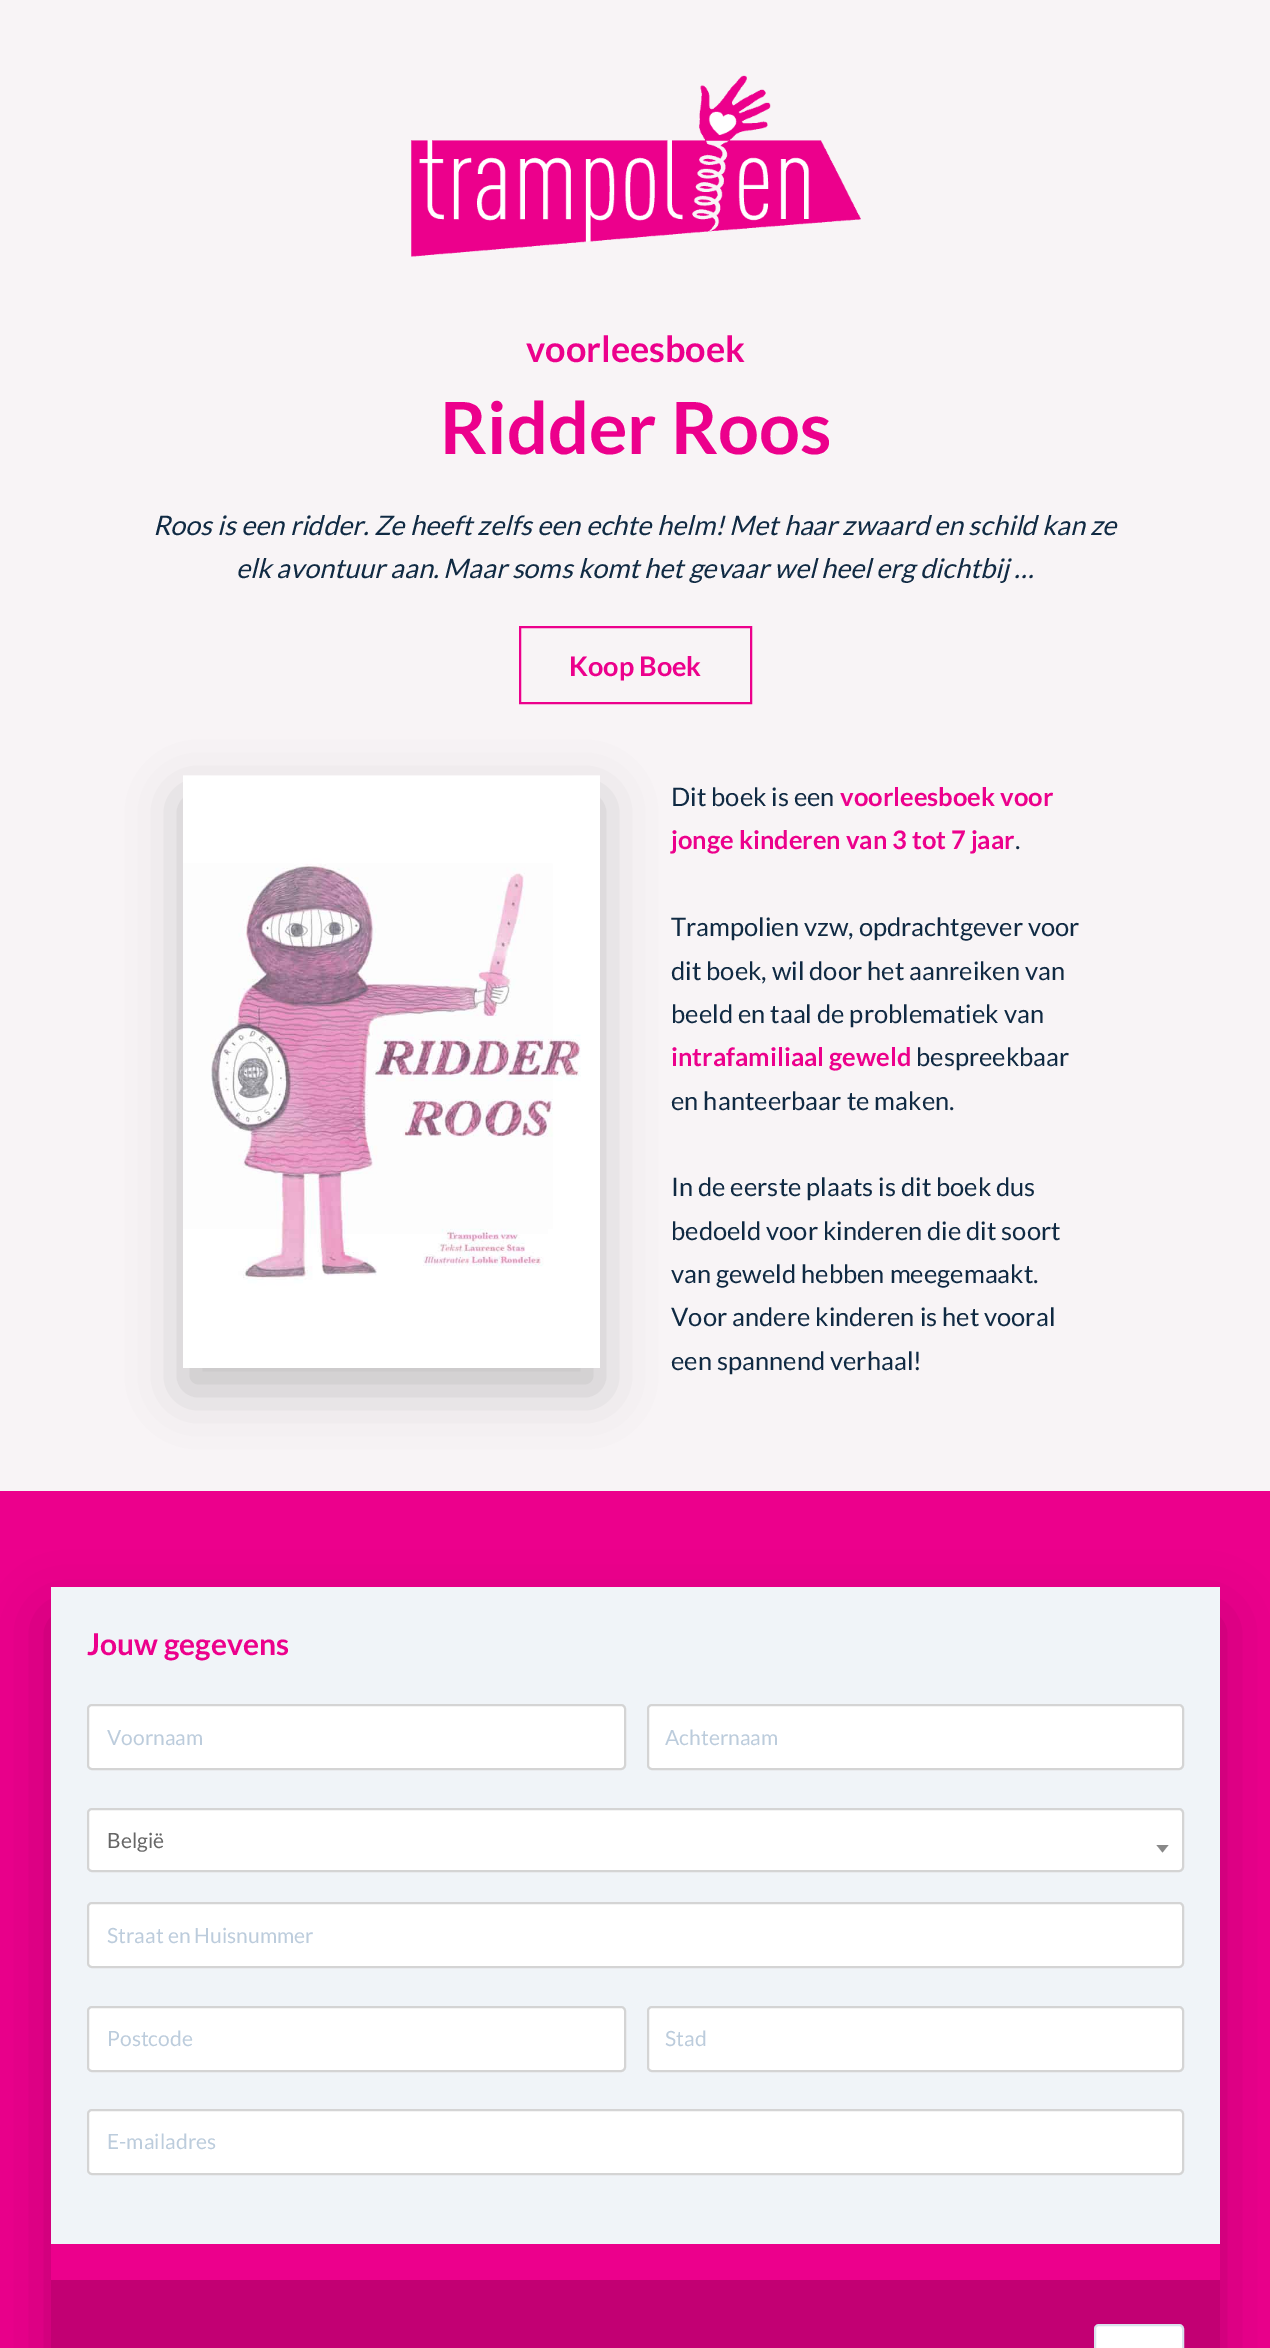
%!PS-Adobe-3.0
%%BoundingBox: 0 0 1270 2348
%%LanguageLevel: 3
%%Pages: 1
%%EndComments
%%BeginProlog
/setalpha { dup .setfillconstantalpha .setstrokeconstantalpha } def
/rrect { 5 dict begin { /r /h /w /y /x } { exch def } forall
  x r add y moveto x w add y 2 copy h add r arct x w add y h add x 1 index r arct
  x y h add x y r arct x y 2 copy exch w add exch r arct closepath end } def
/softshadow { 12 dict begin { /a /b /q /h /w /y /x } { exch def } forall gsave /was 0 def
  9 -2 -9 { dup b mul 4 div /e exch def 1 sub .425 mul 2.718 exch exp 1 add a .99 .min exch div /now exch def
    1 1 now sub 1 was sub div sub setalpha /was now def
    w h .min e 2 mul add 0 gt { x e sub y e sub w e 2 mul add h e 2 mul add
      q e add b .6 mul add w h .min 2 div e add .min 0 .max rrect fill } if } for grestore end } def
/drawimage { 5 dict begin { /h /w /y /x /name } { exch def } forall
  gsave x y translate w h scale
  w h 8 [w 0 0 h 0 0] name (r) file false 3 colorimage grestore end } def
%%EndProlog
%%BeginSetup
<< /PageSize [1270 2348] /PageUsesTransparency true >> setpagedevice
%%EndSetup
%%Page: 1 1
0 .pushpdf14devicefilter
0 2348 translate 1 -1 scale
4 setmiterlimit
0.973 0.957 0.965 setrgbcolor
0 0 1270 2348 rectfill
(images/1.raw) 411 75 450 182 drawimage
0.925 0 0.549 setrgbcolor
2 setlinewidth
520 627 231 76 rectstroke
0 setgray
183 798 417 593 0 26 0.2 softshadow
(images/2.raw) 183 775 417 593 drawimage
0.925 0 0.549 setrgbcolor
0 1491 1270 857 rectfill
gsave
newpath 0 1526 moveto 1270 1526 lineto 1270 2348 lineto 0 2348 lineto closepath 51 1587 moveto 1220 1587 lineto 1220 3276 lineto 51 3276 lineto closepath eoclip newpath
0 setgray
51 1617 1169 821 0 30 0.2 softshadow
grestore
0.941 0.957 0.973 setrgbcolor
51 1587 1169 657 rectfill
1 setgray
88 1705 537 64 4 rrect gsave fill grestore
0.831 setgray
stroke
1 setgray
648 1705 535 64 4 rrect gsave fill grestore
0.831 setgray
stroke
1 setgray
88 1809 1095 62 4 rrect gsave fill grestore
0.831 setgray
stroke
0.533 setgray
newpath 1156.5 1845 moveto 1168.5 1845 lineto 1162.5 1852.5 lineto closepath fill
1 setgray
88 1903 1095 64 4 rrect gsave fill grestore
0.831 setgray
stroke
1 setgray
88 2007 537 64 4 rrect gsave fill grestore
0.831 setgray
stroke
1 setgray
648 2007 535 64 4 rrect gsave fill grestore
0.831 setgray
stroke
1 setgray
88 2110 1095 64 4 rrect gsave fill grestore
0.831 setgray
stroke
0.761 0 0.451 setrgbcolor
51 2280 1169 68 rectfill
1 setgray
1095 2325 88 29 4 rrect gsave fill grestore
0.851 0.886 0.925 setrgbcolor
stroke
/Lato-Bold [36 0 0 -36 0 0] selectfont
0.925 0 0.549 setrgbcolor
526 362 moveto (voorleesboek) show
/Lato-Bold [72 0 0 -72 0 0] selectfont
440 454 moveto (Ridder Roos) show
/Lato-Italic [27 0 0 -27 0 0] selectfont
0.063 0.165 0.263 setrgbcolor
153 535 moveto (Roos is een ridder. Ze heeft zelfs een echte helm! Met haar zwaard en schild kan ze) show
236 578 moveto (elk avontuur aan. Maar soms komt het gevaar wel heel erg dichtbij …) show
/Lato-Bold [27 0 0 -27 0 0] selectfont
0.925 0 0.549 setrgbcolor
569 676 moveto (Koop Boek) show
/Lato-Regular [25.5 0 0 -25.5 0 0] selectfont
0.063 0.165 0.263 setrgbcolor
671 806 moveto (Dit boek is een) show
/Lato-Bold [25.5 0 0 -25.5 0 0] selectfont
0.925 0 0.549 setrgbcolor
840 806 moveto (voorleesboek voor) show
671 849 moveto (jonge kinderen van 3 tot 7 jaar) show
/Lato-Regular [25.5 0 0 -25.5 0 0] selectfont
0.063 0.165 0.263 setrgbcolor
1015 849 moveto (.) show
671 936 moveto (Trampolien vzw, opdrachtgever voor) show
671 980 moveto (dit boek, wil door het aanreiken van) show
671 1023 moveto (beeld en taal de problematiek van) show
/Lato-Bold [25.5 0 0 -25.5 0 0] selectfont
0.925 0 0.549 setrgbcolor
671 1066 moveto (intrafamiliaal geweld) show
/Lato-Regular [25.5 0 0 -25.5 0 0] selectfont
0.063 0.165 0.263 setrgbcolor
916 1066 moveto (bespreekbaar) show
671 1110 moveto (en hanteerbaar te maken.) show
671 1196 moveto (In de eerste plaats is dit boek dus) show
671 1240 moveto (bedoeld voor kinderen die dit soort) show
671 1283 moveto (van geweld hebben meegemaakt.) show
671 1326 moveto (Voor andere kinderen is het vooral) show
671 1370 moveto (een spannend verhaal!) show
/Lato-Bold [30 0 0 -30 0 0] selectfont
0.925 0 0.549 setrgbcolor
87 1655 moveto (Jouw gegevens) show
/Lato-Regular [21 0 0 -21 0 0] selectfont
0.737 0.8 0.863 setrgbcolor
107 1745 moveto (Voornaam) show
665 1745 moveto (Achternaam) show
0.4 setgray
107 1848 moveto (België) show
0.737 0.8 0.863 setrgbcolor
107 1943 moveto (Straat en Huisnummer) show
107 2046 moveto (Postcode) show
665 2046 moveto (Stad) show
107 2149 moveto (E-mailadres) show
.poppdf14devicefilter showpage
%%EOF
